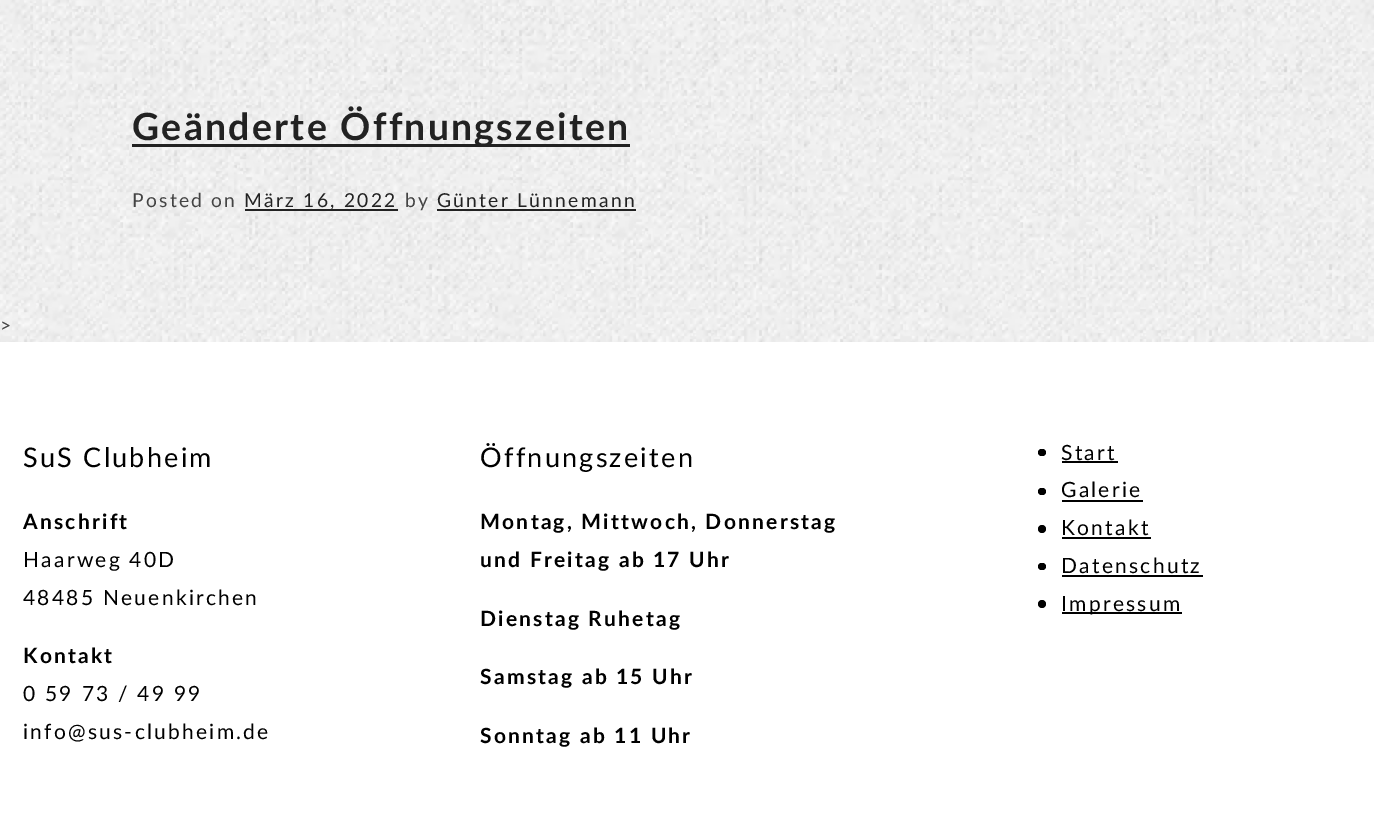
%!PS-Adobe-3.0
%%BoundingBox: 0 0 1374 829
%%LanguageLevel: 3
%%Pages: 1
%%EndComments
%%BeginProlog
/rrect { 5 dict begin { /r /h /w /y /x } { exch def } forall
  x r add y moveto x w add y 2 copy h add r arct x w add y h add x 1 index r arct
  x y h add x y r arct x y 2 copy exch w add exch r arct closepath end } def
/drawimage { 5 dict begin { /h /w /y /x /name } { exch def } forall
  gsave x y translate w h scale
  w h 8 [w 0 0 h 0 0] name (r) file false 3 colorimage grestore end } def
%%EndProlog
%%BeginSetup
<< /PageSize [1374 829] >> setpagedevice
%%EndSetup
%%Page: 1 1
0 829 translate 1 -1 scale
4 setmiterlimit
1 setgray
0 0 1374 829 rectfill
(images/1.raw) 0 0 1374 342 drawimage
0.133 setgray
132 144 498 3 rectfill
245 209 153 2 rectfill
437 209 199 2 rectfill
0 setgray
1038 449 8 7 3.5 rrect fill
1062 461 56 2 rectfill
1038 488 8 7 3.5 rrect fill
1062 500 81 2 rectfill
newpath 1042 529 4 0 360 arc closepath fill
1062 537 89 2 rectfill
1038 563 8 7 3.5 rrect fill
1062 575 141 2 rectfill
newpath 1042 604 4 0 360 arc closepath fill
1062 612 120 2 rectfill
/Lato-Bold [37.5 0 0 -37.5 0 0] selectfont
0.133 setgray
132 140 moveto 2.25 0 (Geänderte Öffnungszeiten) ashow
/Lato-Regular [19.25 0 0 -19.25 0 0] selectfont
0.267 setgray
132 207 moveto 2.25 0 (Posted on) ashow
0.133 setgray
244 207 moveto 2.25 0 (März 16, 2022) ashow
0.267 setgray
405 207 moveto 2.25 0 (by) ashow
0.133 setgray
437 207 moveto 2.25 0 (Günter Lünnemann) ashow
0.267 setgray
0 332 moveto 2.25 0 (>) ashow
/Lato-Regular [27 0 0 -27 0 0] selectfont
0 setgray
23 467 moveto 2.25 0 (SuS Clubheim) ashow
/Lato-Bold [21 0 0 -21 0 0] selectfont
23 529 moveto 2.25 0 (Anschrift) ashow
/Lato-Regular [21 0 0 -21 0 0] selectfont
23 567 moveto 2.25 0 (Haarweg 40D) ashow
23 605 moveto 2.25 0 (48485 Neuenkirchen) ashow
/Lato-Bold [21 0 0 -21 0 0] selectfont
23 663 moveto 2.25 0 (Kontakt) ashow
/Lato-Regular [21 0 0 -21 0 0] selectfont
23 701 moveto 2.25 0 (0 59 73 / 49 99) ashow
23 739 moveto 2.25 0 (info@sus-clubheim.de) ashow
/Lato-Regular [27 0 0 -27 0 0] selectfont
480 467 moveto 2.25 0 (Öffnungszeiten) ashow
/Lato-Bold [21 0 0 -21 0 0] selectfont
480 529 moveto 2.25 0 (Montag, Mittwoch, Donnerstag) ashow
480 567 moveto 2.25 0 (und Freitag ab 17 Uhr) ashow
480 626 moveto 2.25 0 (Dienstag Ruhetag) ashow
480 684 moveto 2.25 0 (Samstag ab 15 Uhr) ashow
480 743 moveto 2.25 0 (Sonntag ab 11 Uhr) ashow
/Lato-Regular [21 0 0 -21 0 0] selectfont
1061 460 moveto 2.25 0 (Start) ashow
1061 497 moveto 2.25 0 (Galerie) ashow
1061 535 moveto 2.25 0 (Kontakt) ashow
1061 573 moveto 2.25 0 (Datenschutz) ashow
1061 611 moveto 2.25 0 (Impressum) ashow
showpage
%%EOF
